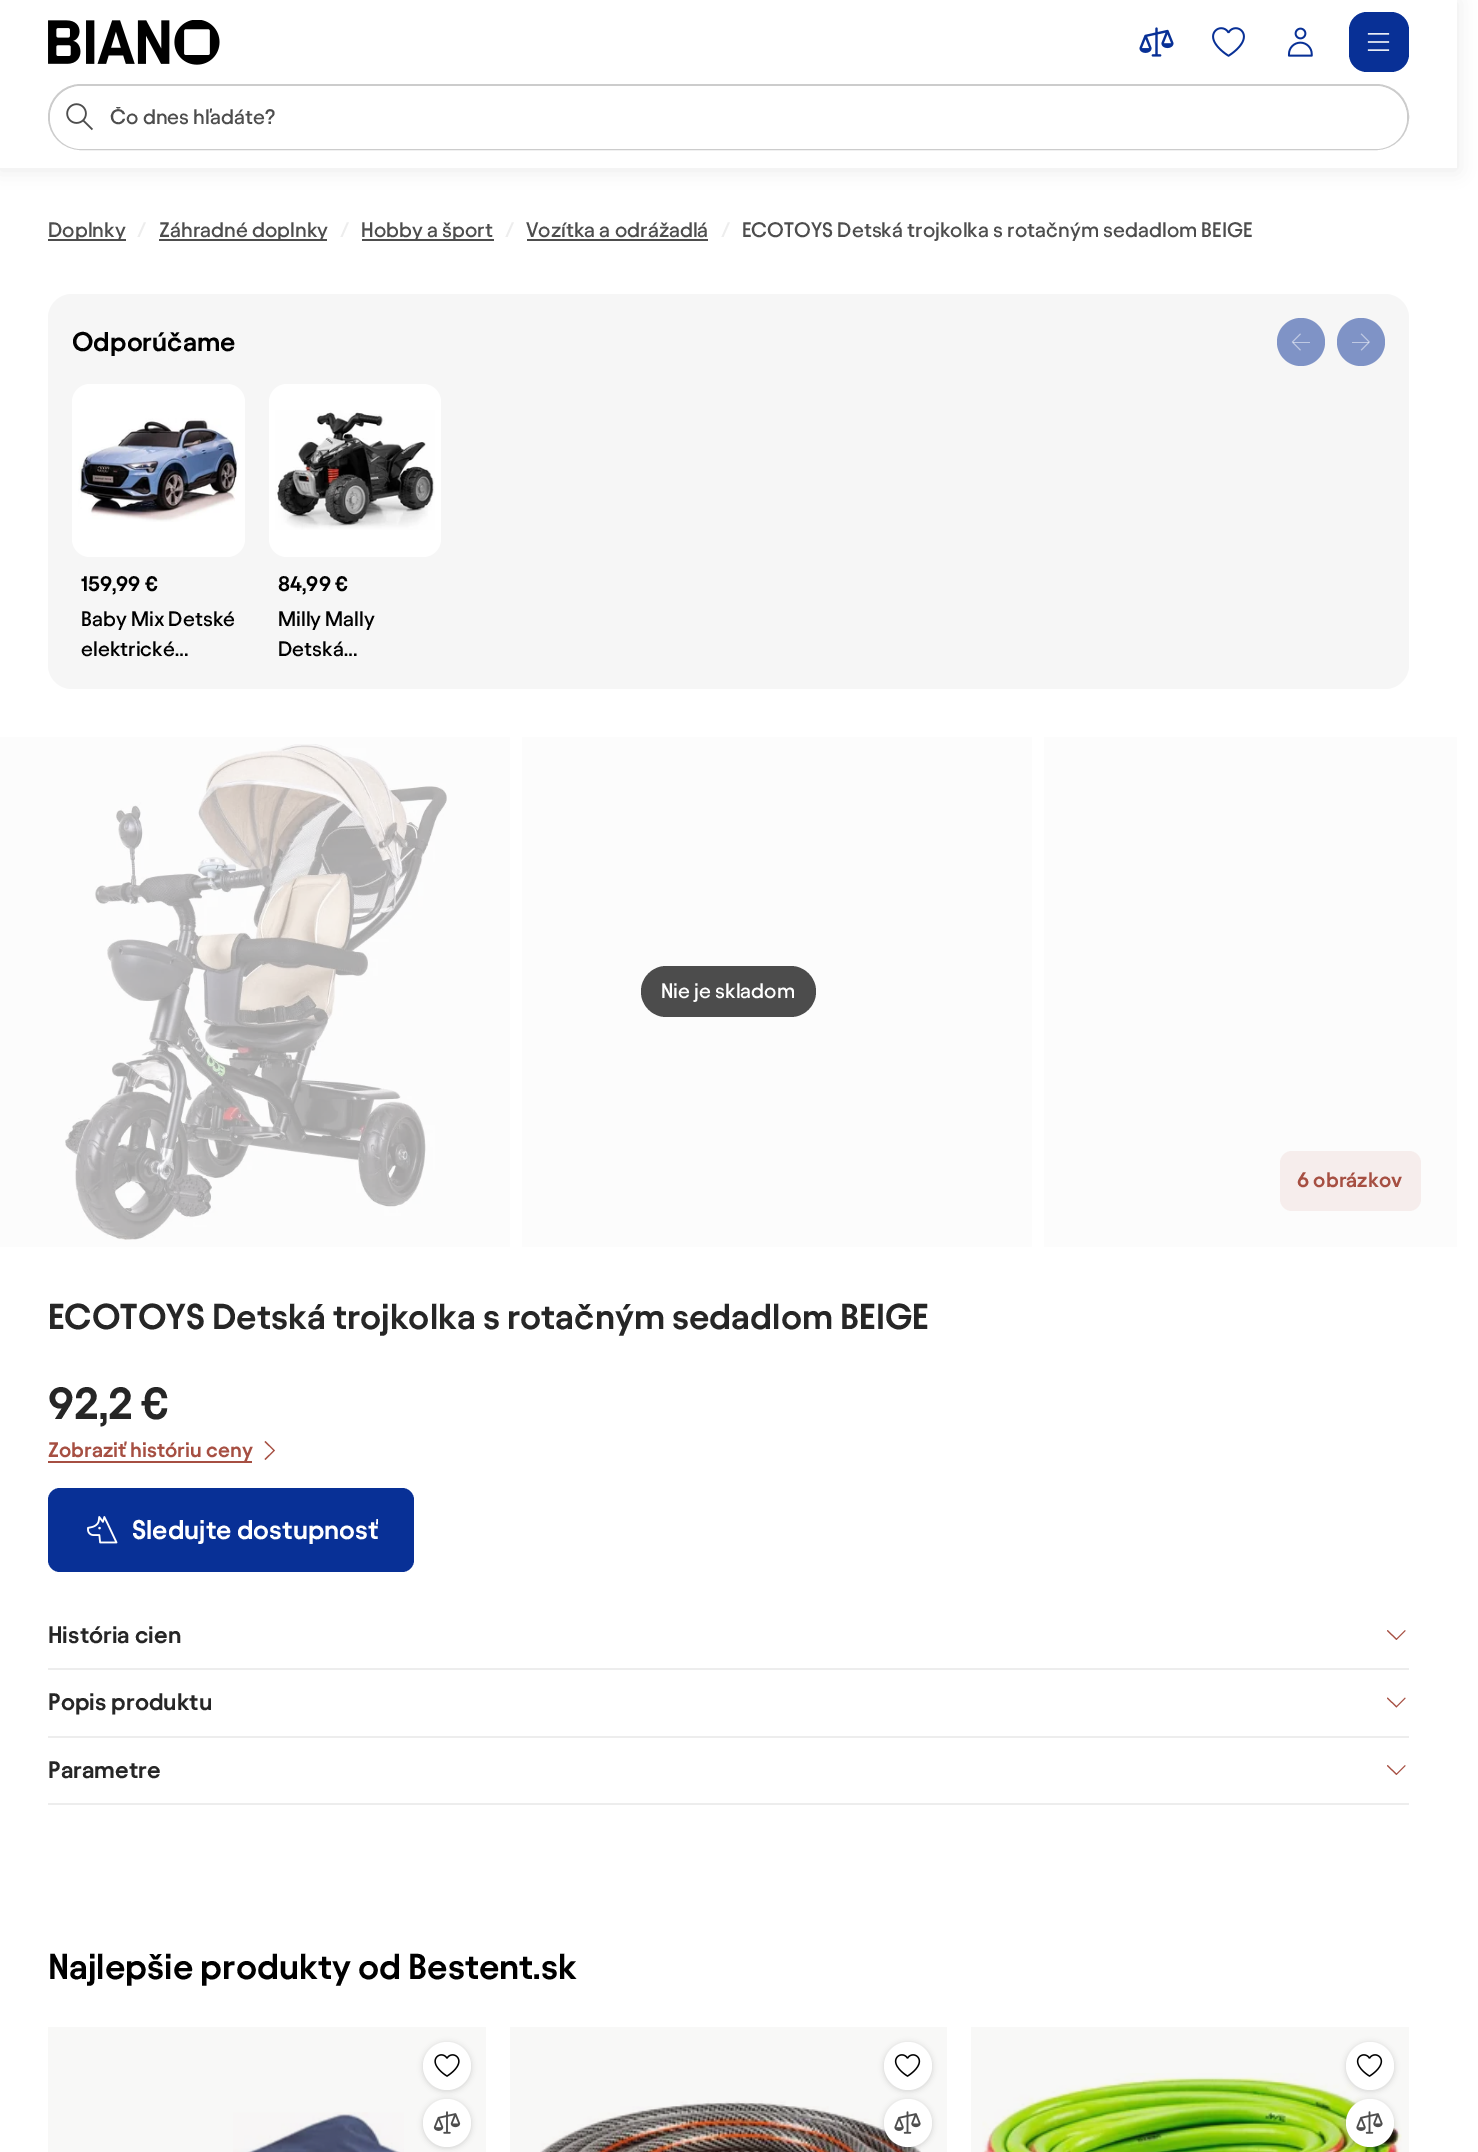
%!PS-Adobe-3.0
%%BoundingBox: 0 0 1478 2152
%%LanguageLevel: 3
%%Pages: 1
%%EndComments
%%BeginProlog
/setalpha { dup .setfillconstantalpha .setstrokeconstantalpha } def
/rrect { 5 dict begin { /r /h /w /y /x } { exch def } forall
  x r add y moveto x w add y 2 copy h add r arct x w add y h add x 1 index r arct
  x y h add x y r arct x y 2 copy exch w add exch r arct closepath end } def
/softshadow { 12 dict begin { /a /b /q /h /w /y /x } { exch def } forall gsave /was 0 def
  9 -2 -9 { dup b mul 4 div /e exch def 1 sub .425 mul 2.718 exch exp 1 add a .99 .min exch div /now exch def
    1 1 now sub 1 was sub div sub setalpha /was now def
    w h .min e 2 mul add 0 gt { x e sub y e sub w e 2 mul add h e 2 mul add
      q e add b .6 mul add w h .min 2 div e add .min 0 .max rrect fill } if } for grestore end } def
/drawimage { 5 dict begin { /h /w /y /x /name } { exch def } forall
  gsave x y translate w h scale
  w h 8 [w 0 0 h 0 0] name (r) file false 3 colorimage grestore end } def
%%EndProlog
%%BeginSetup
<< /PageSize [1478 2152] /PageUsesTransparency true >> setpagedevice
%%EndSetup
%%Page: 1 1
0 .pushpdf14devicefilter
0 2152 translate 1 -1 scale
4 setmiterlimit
1 setgray
0 0 1478 2152 rectfill
0 setgray
0 2 1457 168 0 9 0.08 softshadow
1 setgray
0 0 1457 168 rectfill
(images/1.raw) 48 20 172 45 drawimage
(images/2.raw) 1139 27 35 30 drawimage
(images/3.raw) 1212 27 33 30 drawimage
(images/4.raw) 1287 27 26 30 drawimage
0.031 0.188 0.588 setrgbcolor
1349 12 60 60 18 rrect fill
(images/5.raw) 1367 33 23 18 drawimage
0.8 setgray
2 setlinewidth
49 85 1359 64 32 rrect stroke
1 setgray
50 86 1357 63 31.5 rrect fill
(images/6.raw) 66 103 27 28 drawimage
0.302 setgray
48 239 78 2 rectfill
159 239 168 2 rectfill
362 239 132 2 rectfill
527 239 181 2 rectfill
0.965 setgray
48 294 1361 395 24 rrect fill
0.498 0.576 0.776 setrgbcolor
newpath 1301 342 24 0 360 arc closepath fill
(images/7.raw) 1291 333 19 18 drawimage
newpath 1361 342 24 0 360 arc closepath fill
(images/8.raw) 1352 333 18 18 drawimage
1 setgray
72 384 173 173 18 rrect fill
(images/9.raw) 78 418 160 104 drawimage
269 384 172 173 18 rrect fill
(images/10.raw) 275 410 160 120 drawimage
0.988 setgray
0 737 510 510 rectfill
(images/11.raw) 65 744 382 496 drawimage
522 737 510 510 rectfill
1044 737 413 510 rectfill
0.298 setgray
641 966 175 51 25.5 rrect fill
0.965 0.929 0.925 setrgbcolor
1280 1151 141 60 12 rrect fill
0.651 0.31 0.259 setrgbcolor
48 1461 204 2 rectfill
newpath 275 1450.5 moveto 265.5 1460 lineto 264.5 1459 lineto 273.5 1450.5 lineto 264.5 1442 lineto 265.5 1441 lineto closepath fill
0.031 0.188 0.588 setrgbcolor
48 1488 366 84 12 rrect fill
(images/12.raw) 87 1516 31 28 drawimage
0.929 setgray
48 1668 1361 2 rectfill
0.651 0.31 0.259 setrgbcolor
newpath 1396.5 1640 moveto 1387 1631 lineto 1387.5 1630 lineto 1396.5 1638.5 lineto 1405 1630 lineto 1405.5 1631 lineto closepath fill
0.929 setgray
48 1736 1361 2 rectfill
0.651 0.31 0.259 setrgbcolor
newpath 1396.5 1707.5 moveto 1387 1698.5 lineto 1387.5 1697.5 lineto 1396.5 1706 lineto 1405 1697.5 lineto 1405.5 1698.5 lineto closepath fill
0.929 setgray
48 1803 1361 2 rectfill
0.651 0.31 0.259 setrgbcolor
newpath 1396.5 1775 moveto 1387 1766 lineto 1387.5 1765 lineto 1396.5 1773.5 lineto 1405 1765 lineto 1405.5 1766 lineto closepath fill
(images/13.raw) 233 2112 171 40 drawimage
0.05 setalpha
0.494 0.451 0.404 setrgbcolor
48 2027 438 125 rectfill
1 setalpha
0 setgray
423 2043 48 48 24 3 0.16 softshadow
1 setgray
newpath 447 2066 24 0 360 arc closepath fill
(images/14.raw) 434 2054 26 23 drawimage
0 setgray
423 2100 48 48 24 3 0.16 softshadow
1 setgray
newpath 447 2123 24 0 360 arc closepath fill
(images/15.raw) 433 2111 28 23 drawimage
(images/16.raw) 540 2100 381 52 drawimage
0.05 setalpha
0.494 0.451 0.404 setrgbcolor
510 2027 437 125 rectfill
1 setalpha
0 setgray
884 2043 48 48 24 3 0.16 softshadow
1 setgray
newpath 908 2066 24 0 360 arc closepath fill
(images/17.raw) 894 2054 27 23 drawimage
0 setgray
884 2100 48 48 24 3 0.16 softshadow
1 setgray
newpath 908 2123 24 0 360 arc closepath fill
(images/18.raw) 894 2111 27 23 drawimage
(images/19.raw) 982 2073 420 79 drawimage
0.05 setalpha
0.494 0.451 0.404 setrgbcolor
971 2027 438 125 rectfill
1 setalpha
0 setgray
1346 2043 48 48 24 3 0.16 softshadow
1 setgray
newpath 1370 2066 24 0 360 arc closepath fill
(images/17.raw) 1356 2054 27 23 drawimage
0 setgray
1346 2100 48 48 24 3 0.16 softshadow
1 setgray
newpath 1370 2123 24 0 360 arc closepath fill
(images/18.raw) 1356 2111 27 23 drawimage
gsave
110 107 1297 22 rectclip
/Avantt-Medium [21 0 0 -21 0 0] selectfont
0.302 setgray
110 124 moveto (Čo dnes hľadáte?) show
grestore
/Avantt-Medium [21 0 0 -21 0 0] selectfont
0.302 setgray
48 237 moveto (Doplnky) show
0.929 setgray
137 237 moveto (/) show
0.302 setgray
159 237 moveto (Záhradné doplnky) show
0.929 setgray
340 237 moveto (/) show
0.302 setgray
361 237 moveto (Hobby a šport) show
0.929 setgray
505 237 moveto (/) show
0.302 setgray
526 237 moveto (Vozítka a odrážadlá) show
0.929 setgray
721 237 moveto (/) show
0.302 setgray
742 237 moveto (ECOTOYS Detská trojkolka s rotačným sedadlom BEIGE) show
/Avantt-SemiBold [27 0 0 -27 0 0] selectfont
0 setgray
72 351 moveto (Odporúčame) show
/Avantt-SemiBold [21 0 0 -21 0 0] selectfont
81 591 moveto (159,99 €) show
/Avantt-Medium [21 0 0 -21 0 0] selectfont
81 626 moveto (Baby Mix Detské) show
81 656 moveto (elektrické…) show
/Avantt-SemiBold [21 0 0 -21 0 0] selectfont
278 591 moveto (84,99 €) show
/Avantt-Medium [21 0 0 -21 0 0] selectfont
278 626 moveto (Milly Mally) show
278 656 moveto (Detská…) show
1 setgray
661 998 moveto (Nie je skladom) show
/Avantt-SemiBold [21 0 0 -21 0 0] selectfont
0.651 0.31 0.259 setrgbcolor
1297 1187 moveto (6 obrázkov) show
/Avantt-SemiBold [36 0 0 -36 0 0] selectfont
0.149 setgray
48 1329 moveto (ECOTOYS Detská trojkolka s rotačným sedadlom BEIGE) show
/Avantt-SemiBold [45 0 0 -45 0 0] selectfont
48 1419 moveto (92,2 €) show
/Avantt-SemiBold [21 0 0 -21 0 0] selectfont
0.651 0.31 0.259 setrgbcolor
48 1457 moveto (Zobraziť históriu ceny) show
gsave
132 1509 246 42 rectclip
/Avantt-SemiBold [27 0 0 -27 0 0] selectfont
1 setgray
132 1539 moveto (Sledujte dostupnosť) show
grestore
/Avantt-SemiBold [24 0 0 -24 0 0] selectfont
0.149 setgray
48 1643 moveto (História cien) show
48 1710 moveto (Popis produktu) show
48 1778 moveto (Parametre) show
/Avantt-SemiBold [36 0 0 -36 0 0] selectfont
0 setgray
48 1979 moveto (Najlepšie produkty od Bestent.sk) show
.poppdf14devicefilter showpage
%%EOF
